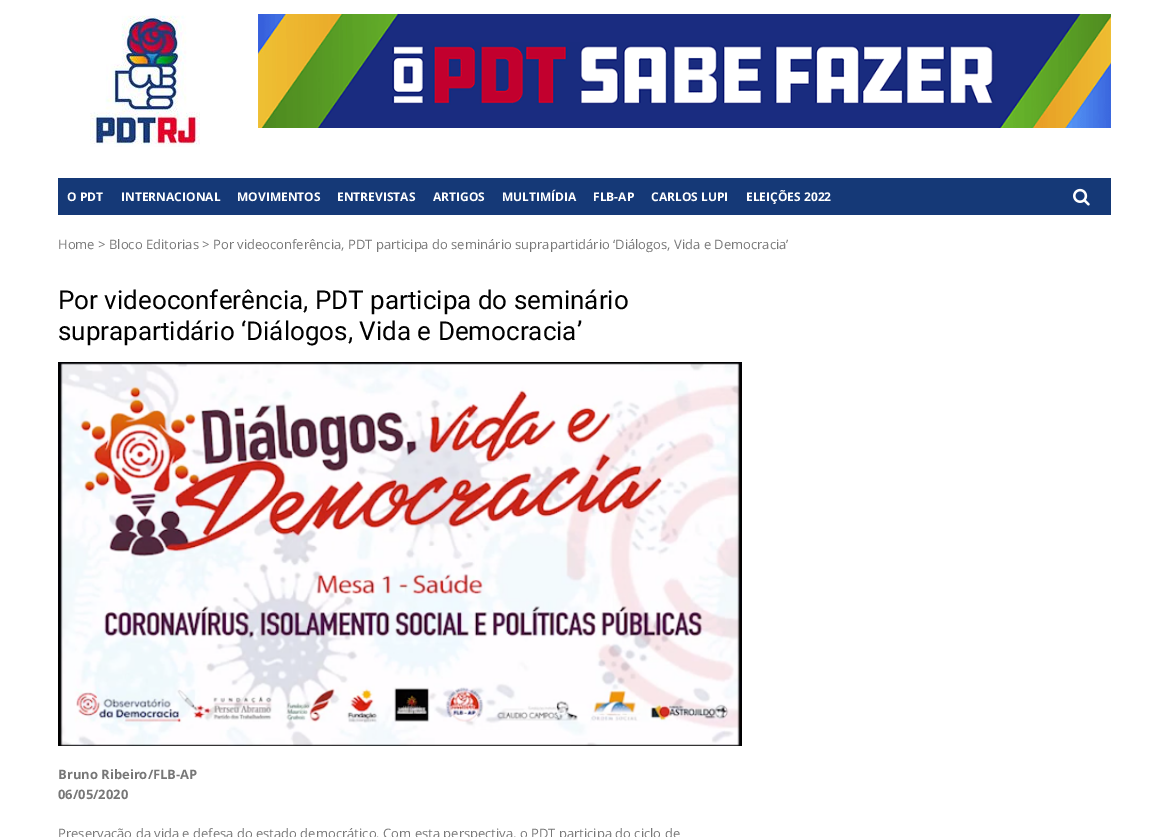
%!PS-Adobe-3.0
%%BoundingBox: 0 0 1169 837
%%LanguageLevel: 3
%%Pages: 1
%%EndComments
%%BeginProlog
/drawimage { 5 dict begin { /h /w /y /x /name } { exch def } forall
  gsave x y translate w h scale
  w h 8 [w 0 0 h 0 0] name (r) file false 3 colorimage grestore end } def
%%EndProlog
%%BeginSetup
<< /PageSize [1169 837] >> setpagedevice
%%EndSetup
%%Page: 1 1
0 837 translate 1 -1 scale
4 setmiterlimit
1 setgray
0 0 1169 837 rectfill
(images/1.raw) 90 15 110 132 drawimage
(images/2.raw) 258 14 853 114 drawimage
0.082 0.224 0.467 setrgbcolor
58 178 1053 37 rectfill
(images/3.raw) 1073 188 17 18 drawimage
(images/4.raw) 58 362 684 384 drawimage
/OpenSans-Bold [12 0 0 -12 0 0] selectfont
1 setgray
67 201 moveto (O PDT) show
121 201 moveto (INTERNACIONAL) show
237 201 moveto (MOVIMENTOS) show
337 201 moveto (ENTREVISTAS) show
433 201 moveto (ARTIGOS) show
502 201 moveto (MULTIMÍDIA) show
593 201 moveto (FLB-AP) show
651 201 moveto (CARLOS LUPI) show
746 201 moveto (ELEIÇÕES 2022) show
/OpenSans-Regular [13 0 0 -13 0 0] selectfont
0.467 setgray
58 249 moveto (Home > Bloco Editorias > Por videoconferência, PDT participa do seminário suprapartidário ‘Diálogos, Vida e Democracia’) show
/Roboto-Regular [26 0 0 -26 0 0] selectfont
0 setgray
58 309 moveto (Por videoconferência, PDT participa do seminário) show
58 340 moveto (suprapartidário ‘Diálogos, Vida e Democracia’) show
/OpenSans-Bold [13 0 0 -13 0 0] selectfont
0.467 setgray
58 779 moveto (Bruno Ribeiro/FLB-AP) show
58 799 moveto (06/05/2020) show
/OpenSans-Regular [13 0 0 -13 0 0] selectfont
58 838 moveto (Preservação da vida e defesa do estado democrático. Com esta perspectiva, o PDT participa do ciclo de) show
showpage
%%EOF
